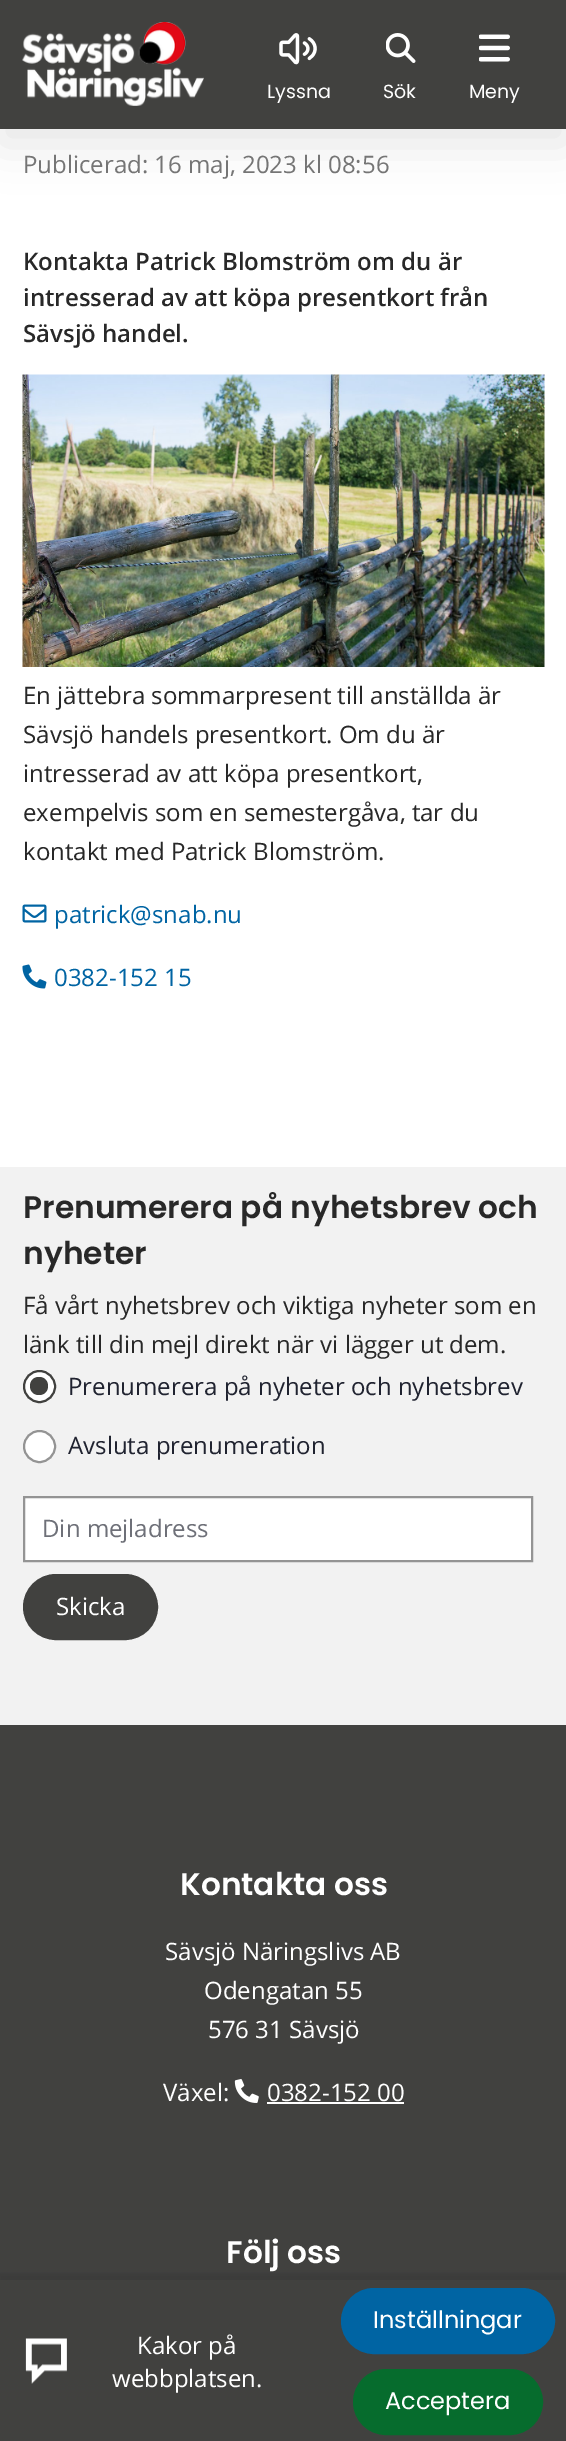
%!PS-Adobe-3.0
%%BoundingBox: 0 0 566 2441
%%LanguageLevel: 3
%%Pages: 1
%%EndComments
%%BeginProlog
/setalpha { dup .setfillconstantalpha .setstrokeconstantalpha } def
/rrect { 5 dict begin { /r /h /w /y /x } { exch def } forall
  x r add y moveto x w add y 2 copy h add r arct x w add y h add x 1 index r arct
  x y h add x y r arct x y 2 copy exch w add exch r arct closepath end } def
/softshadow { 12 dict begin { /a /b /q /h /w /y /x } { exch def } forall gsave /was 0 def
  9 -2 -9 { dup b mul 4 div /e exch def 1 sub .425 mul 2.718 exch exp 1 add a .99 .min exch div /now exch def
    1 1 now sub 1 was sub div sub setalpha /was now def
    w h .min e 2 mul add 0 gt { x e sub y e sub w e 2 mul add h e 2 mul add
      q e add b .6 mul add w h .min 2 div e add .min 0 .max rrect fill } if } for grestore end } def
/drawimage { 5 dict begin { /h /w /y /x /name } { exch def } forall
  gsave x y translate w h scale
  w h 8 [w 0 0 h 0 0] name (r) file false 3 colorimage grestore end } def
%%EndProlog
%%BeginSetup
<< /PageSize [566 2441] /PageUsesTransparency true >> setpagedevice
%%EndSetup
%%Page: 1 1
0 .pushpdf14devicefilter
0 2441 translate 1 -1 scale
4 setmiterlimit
1 setgray
0 0 566 2441 rectfill
0 setgray
0 15 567 129 0 22.5 0.1 softshadow
0.255 0.255 0.247 setrgbcolor
0 0 566 129 rectfill
(images/1.raw) 22 22 182 84 drawimage
(images/2.raw) 279 33 38 32 drawimage
(images/3.raw) 386 33 30 30 drawimage
(images/4.raw) 479 34 31 28 drawimage
(images/5.raw) 22 374 523 293 drawimage
(images/6.raw) 22 904 25 19 drawimage
(images/7.raw) 22 964 25 25 drawimage
0.949 setgray
0 1167 566 558 rectfill
1 setgray
newpath 39.5 1386.5 15.5 0 360 arc closepath gsave fill grestore
0.255 0.255 0.247 setrgbcolor
2 setlinewidth
stroke
newpath 39 1377 moveto 27 1377 27 1395 39 1395 curveto 51 1395 51 1377 39 1377 curveto closepath fill
1 setgray
newpath 39.5 1446.5 15.5 0 360 arc closepath gsave fill grestore
0.58 setgray
stroke
1 setgray
newpath 24 1497 moveto 532 1497 lineto 532 1561 lineto 24 1561 lineto closepath gsave fill grestore
0.58 setgray
stroke
0.255 0.255 0.247 setrgbcolor
24 1575 133 64 32 rrect gsave fill grestore
stroke
0 1725 566 555 rectfill
(images/8.raw) 234 2079 25 24 drawimage
1 setgray
267 2102 137 2 rectfill
0 setgray
-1 2274 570 165 0 2 0.1 softshadow
0.255 0.255 0.247 setrgbcolor
0 2280 566 161 rectfill
(images/9.raw) 25 2338 42 46 drawimage
0 0.392 0.639 setrgbcolor
342 2289 212 64 32 rrect gsave fill grestore
stroke
0.024 0.424 0.176 setrgbcolor
354 2370 188 64 32 rrect gsave fill grestore
stroke
/Poppins-Regular [19 0 0 -19 0 0] selectfont
1 setgray
267 98 moveto (Lyssna) show
383 98 moveto (Sök) show
469 98 moveto (Meny) show
/OpenSans-Regular [24 0 0 -24 0 0] selectfont
0.459 setgray
23 173 moveto (Publicerad: 16 maj, 2023 kl 08:56) show
/OpenSans-SemiBold [24 0 0 -24 0 0] selectfont
0.157 setgray
23 270 moveto (Kontakta Patrick Blomström om du är) show
23 306 moveto (intresserad av att köpa presentkort från) show
23 342 moveto (Sävsjö handel.) show
/OpenSans-Regular [24 0 0 -24 0 0] selectfont
23 704 moveto (En jättebra sommarpresent till anställda är) show
23 743 moveto (Sävsjö handels presentkort. Om du är) show
23 782 moveto (intresserad av att köpa presentkort,) show
23 821 moveto (exempelvis som en semestergåva, tar du) show
23 860 moveto (kontakt med Patrick Blomström.) show
0 0.392 0.639 setrgbcolor
54 923 moveto (patrick@snab.nu) show
54 986 moveto (0382-152 15) show
/Poppins-SemiBold [31.25 0 0 -31.25 0 0] selectfont
0.157 setgray
23 1218 moveto (Prenumerera på nyhetsbrev och) show
23 1264 moveto (nyheter) show
/OpenSans-Regular [24 0 0 -24 0 0] selectfont
23 1314 moveto (Få vårt nyhetsbrev och viktiga nyheter som en) show
23 1353 moveto (länk till din mejl direkt när vi lägger ut dem.) show
0.125 0.137 0.188 setrgbcolor
68 1395 moveto (Prenumerera på nyheter och nyhetsbrev) show
68 1454 moveto (Avsluta prenumeration) show
0.431 0.439 0.471 setrgbcolor
42 1537 moveto (Din mejladress) show
1 setgray
56 1615 moveto (Skicka) show
/Poppins-SemiBold [31.25 0 0 -31.25 0 0] selectfont
180 1895 moveto (Kontakta oss) show
/OpenSans-Regular [24 0 0 -24 0 0] selectfont
165 1960 moveto (Sävsjö Näringslivs AB) show
204 1999 moveto (Odengatan 55) show
208 2038 moveto (576 31 Sävsjö) show
163 2101 moveto (Växel:) show
267 2101 moveto (0382-152 00) show
/Poppins-SemiBold [31.25 0 0 -31.25 0 0] selectfont
226 2263 moveto (Följ oss) show
/OpenSans-Regular [24 0 0 -24 0 0] selectfont
137 2354 moveto (Kakor på) show
112 2387 moveto (webbplatsen.) show
/Poppins-Regular [24 0 0 -24 0 0] selectfont
373 2328 moveto (Inställningar) show
385 2409 moveto (Acceptera) show
.poppdf14devicefilter showpage
%%EOF
